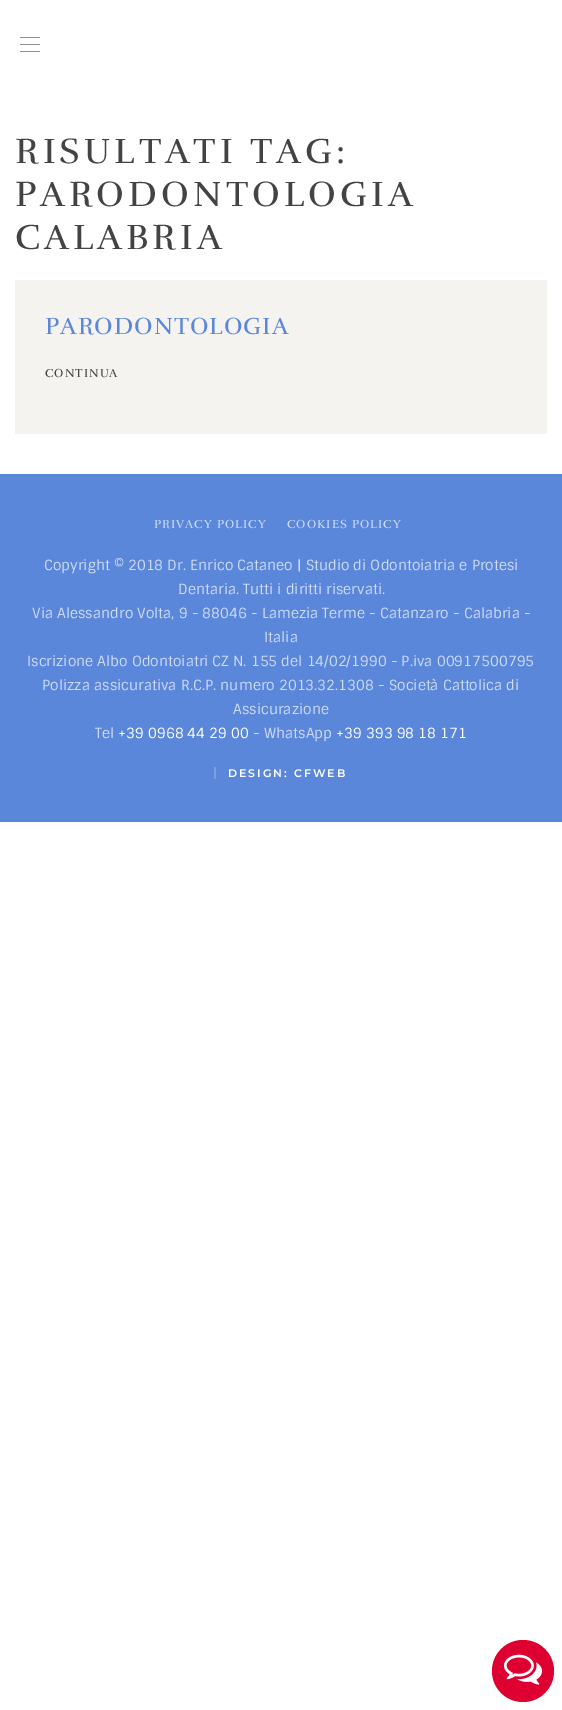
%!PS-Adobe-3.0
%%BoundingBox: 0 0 562 1710
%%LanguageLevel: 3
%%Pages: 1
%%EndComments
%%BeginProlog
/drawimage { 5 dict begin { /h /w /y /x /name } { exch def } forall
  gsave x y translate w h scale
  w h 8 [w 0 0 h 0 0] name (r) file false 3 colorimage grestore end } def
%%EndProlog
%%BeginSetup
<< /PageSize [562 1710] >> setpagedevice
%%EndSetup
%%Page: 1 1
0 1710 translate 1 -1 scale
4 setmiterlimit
1 setgray
0 0 562 1710 rectfill
0.565 setgray
20 37 20 1 rectfill
20 44 20 1 rectfill
20 51 20 1 rectfill
0.957 0.953 0.941 setrgbcolor
15 280 532 154 rectfill
0.357 0.529 0.855 setrgbcolor
0 474 562 348 rectfill
0.486 0.624 0.882 setrgbcolor
214 767 2 12 rectfill
0.867 0 0.192 setrgbcolor
newpath 523 1671 31 0 360 arc closepath fill
(images/1.raw) 504 1654 38 31 drawimage
/Rufina-Regular [36 0 0 -36 0 0] selectfont
0.263 setgray
15 163 moveto 4 0 (RISULTATI TAG:) ashow
15 206 moveto 4 0 (PARODONTOLOGIA) ashow
15 249 moveto 4 0 (CALABRIA) ashow
/Rufina-Regular [24 0 0 -24 0 0] selectfont
0.357 0.529 0.855 setrgbcolor
45 334 moveto 1 0 (PARODONTOLOGIA) ashow
/Rufina-Regular [12 0 0 -12 0 0] selectfont
0.263 setgray
45 377 moveto 1 0 (CONTINUA) ashow
0.808 0.859 0.957 setrgbcolor
154 528 moveto 1 0 (PRIVACY POLICY) ashow
287 528 moveto 1 0 (COOKIES POLICY) ashow
/Sintony-Regular [14 0 0 -14 0 0] selectfont
44 570 moveto (Copyright © 2018 Dr. Enrico Cataneo | Studio di Odontoiatria e Protesi) show
178 594 moveto (Dentaria. Tutti i diritti riservati.) show
32 618 moveto (Via Alessandro Volta, 9 - 88046 - Lamezia Terme - Catanzaro - Calabria -) show
264 642 moveto (Italia) show
27 666 moveto (Iscrizione Albo Odontoiatri CZ N. 155 del 14/02/1990 - P.iva 00917500795) show
42 690 moveto (Polizza assicurativa R.C.P. numero 2013.32.1308 - Società Cattolica di) show
233 714 moveto (Assicurazione) show
95 738 moveto (Tel) show
1 setgray
118 738 moveto (+39 0968 44 29 00) show
0.808 0.859 0.957 setrgbcolor
253 738 moveto (- WhatsApp) show
1 setgray
336 738 moveto (+39 393 98 18 171) show
/Montserrat-SemiBold [11 0 0 -11 0 0] selectfont
228 777 moveto 2 0 (DESIGN: CFWEB) ashow
showpage
%%EOF
